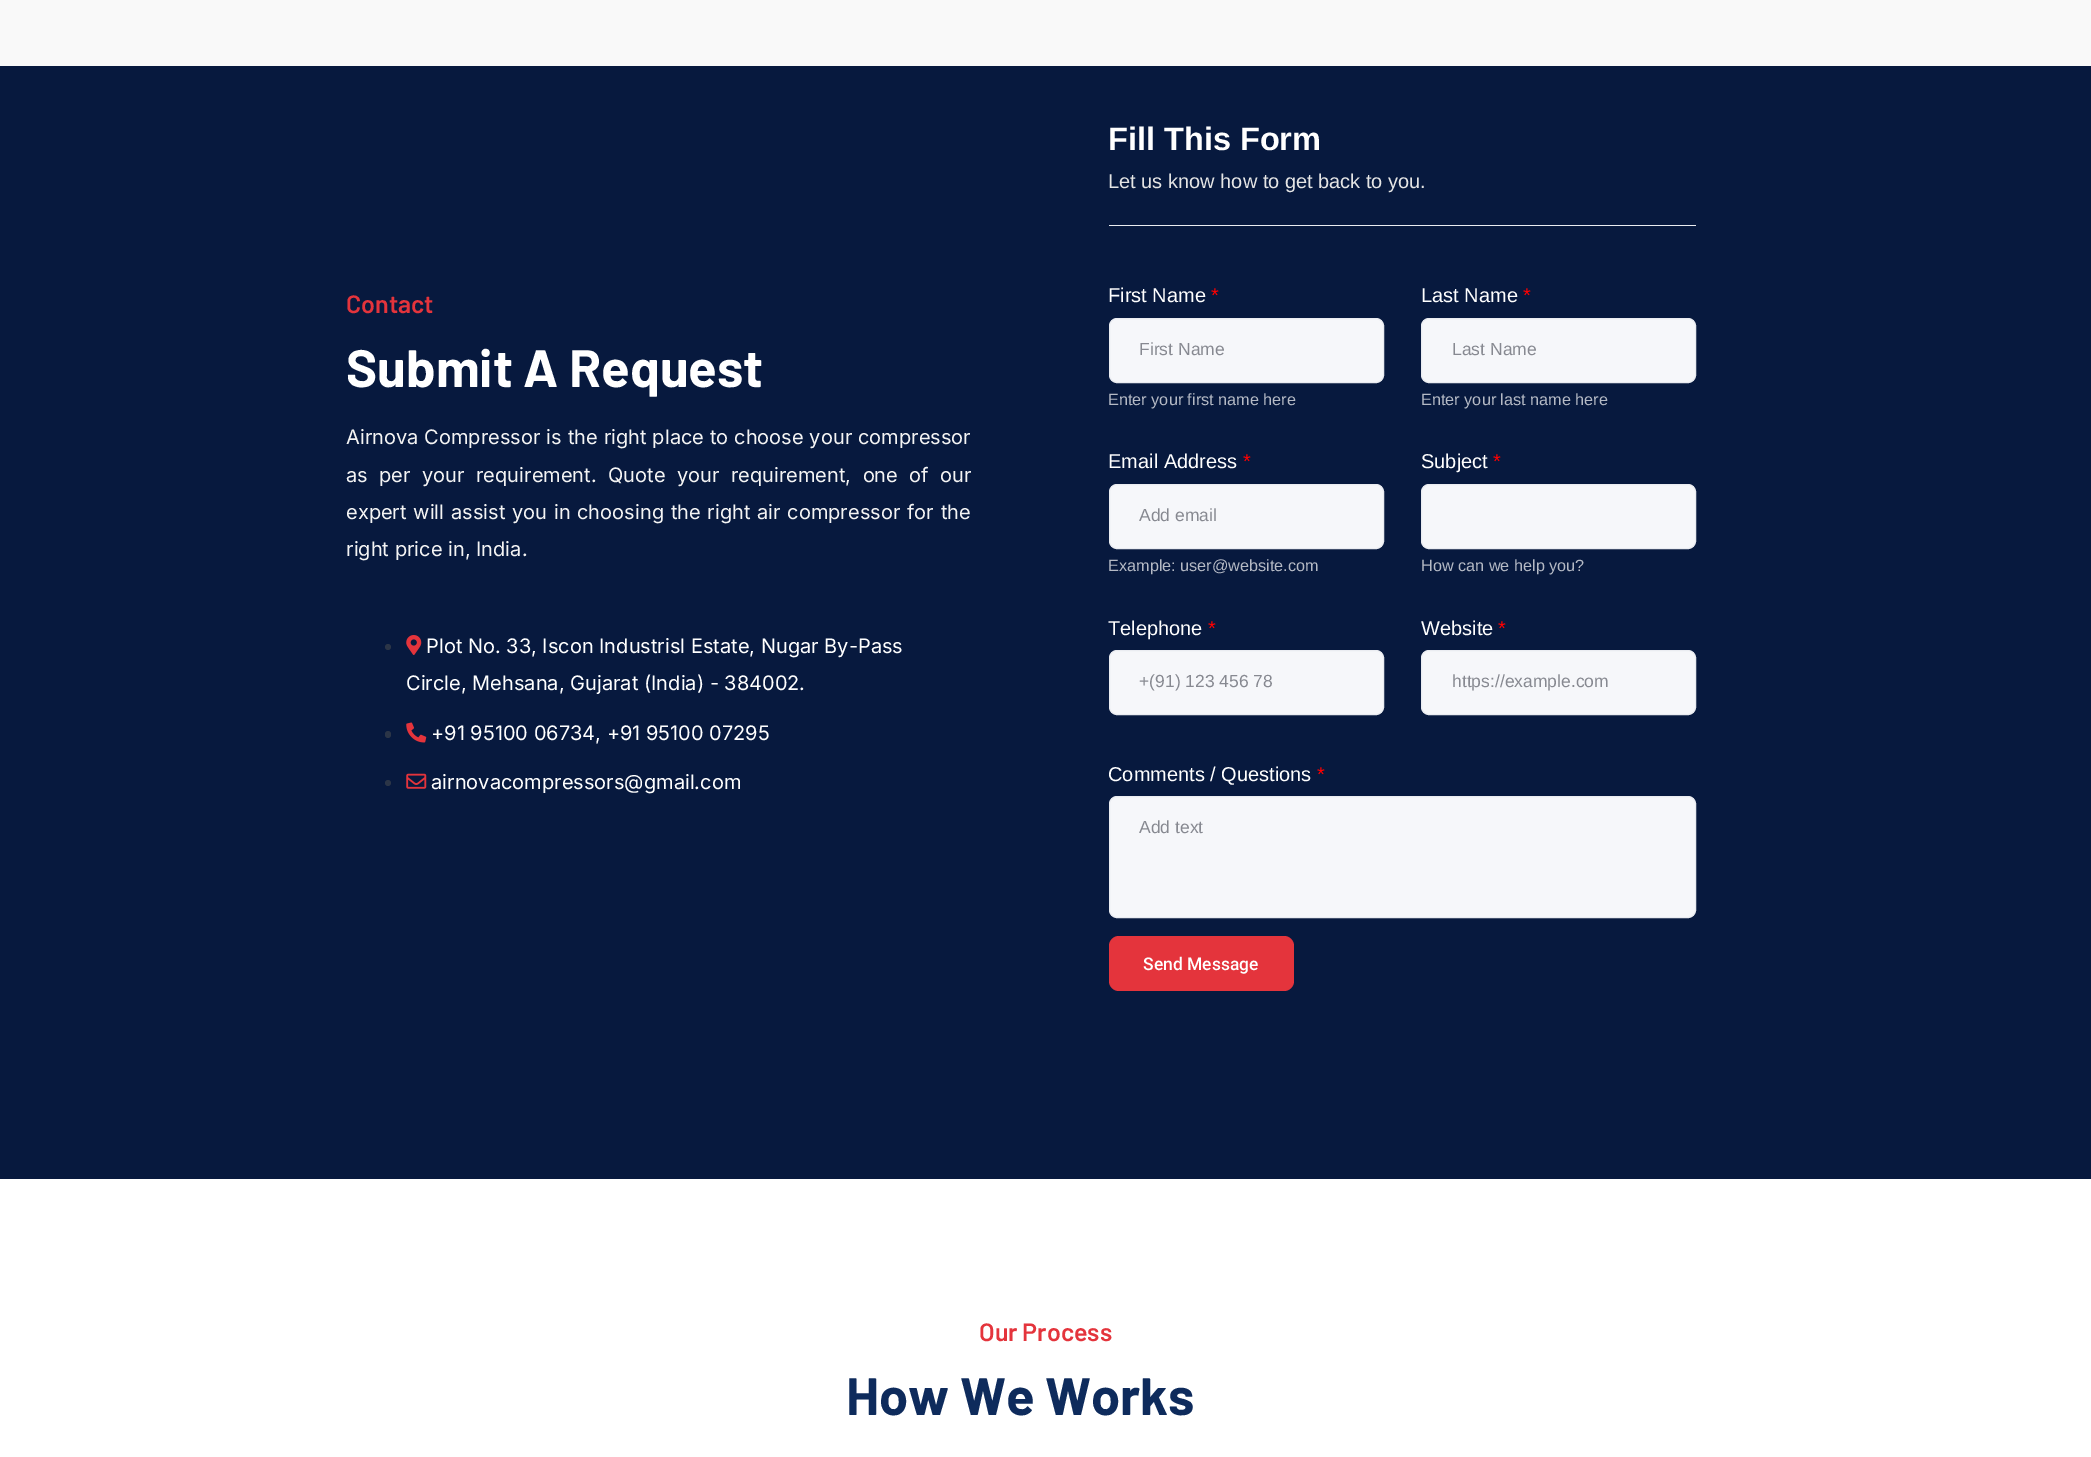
%!PS-Adobe-3.0
%%BoundingBox: 0 0 2091 1457
%%LanguageLevel: 3
%%Pages: 1
%%EndComments
%%BeginProlog
/rrect { 5 dict begin { /r /h /w /y /x } { exch def } forall
  x r add y moveto x w add y 2 copy h add r arct x w add y h add x 1 index r arct
  x y h add x y r arct x y 2 copy exch w add exch r arct closepath end } def
/drawimage { 5 dict begin { /h /w /y /x /name } { exch def } forall
  gsave x y translate w h scale
  w h 8 [w 0 0 h 0 0] name (r) file false 3 colorimage grestore end } def
%%EndProlog
%%BeginSetup
<< /PageSize [2091 1457] >> setpagedevice
%%EndSetup
%%Page: 1 1
0 1457 translate 1 -1 scale
4 setmiterlimit
1 setgray
0 0 2091 1457 rectfill
0.976 setgray
0 0 2091 66 rectfill
0.027 0.098 0.243 setrgbcolor
0 66 2091 1113 rectfill
0.169 0.208 0.278 setrgbcolor
newpath 388 647 3 0 360 arc closepath fill
(images/1.raw) 406 635 16 20 drawimage
385 731 6 7 3 rrect fill
(images/2.raw) 406 722 21 21 drawimage
newpath 388 783 3 0 360 arc closepath fill
(images/3.raw) 406 773 21 16 drawimage
0.918 0.925 0.945 setrgbcolor
1109 225 587 1 rectfill
0.965 0.969 0.98 setrgbcolor
1109.5 318.5 274 64 7.5 rrect gsave fill grestore
0.918 0.925 0.945 setrgbcolor
stroke
0.965 0.969 0.98 setrgbcolor
1421.5 318.5 274 64 7.5 rrect gsave fill grestore
0.918 0.925 0.945 setrgbcolor
stroke
0.965 0.969 0.98 setrgbcolor
1109.5 484.5 274 64 7.5 rrect gsave fill grestore
0.918 0.925 0.945 setrgbcolor
stroke
0.965 0.969 0.98 setrgbcolor
1421.5 484.5 274 64 7.5 rrect gsave fill grestore
0.918 0.925 0.945 setrgbcolor
stroke
0.965 0.969 0.98 setrgbcolor
1109.5 650.5 274 64 7.5 rrect gsave fill grestore
0.918 0.925 0.945 setrgbcolor
stroke
0.965 0.969 0.98 setrgbcolor
1421.5 650.5 274 64 7.5 rrect gsave fill grestore
0.918 0.925 0.945 setrgbcolor
stroke
0.965 0.969 0.98 setrgbcolor
1109.5 796.5 586 121 7.5 rrect gsave fill grestore
0.918 0.925 0.945 setrgbcolor
stroke
0.894 0.204 0.235 setrgbcolor
1109 936 185 55 10 rrect fill
/Barlow-SemiBold [25 0 0 -25 0 0] selectfont
346 313 moveto (Contact) show
/Barlow-Bold [52.5 0 0 -52.5 0 0] selectfont
1 setgray
346 387 moveto (Submit A Request) show
/Inter-Regular [20 0 0 -20 0 0] selectfont
0.957 setgray
346 444 moveto 0.25 0 32 (Airnova Compressor is the right place to choose your compressor) widthshow
346 482 moveto 5.75 0 32 (as per your requirement. Quote your requirement, one of our) widthshow
346 519 moveto 1.1 0 32 (expert will assist you in choosing the right air compressor for the) widthshow
346 556 moveto (right price in, India.) show
1 setgray
426 653 moveto (Plot No. 33, Iscon Industrisl Estate, Nugar By-Pass) show
406 690 moveto (Circle, Mehsana, Gujarat \(India\) - 384002.) show
431 740 moveto (+91 95100 06734, +91 95100 07295) show
431 789 moveto (airnovacompressors@gmail.com) show
/LiberationSans-Bold [32.5 0 0 -32.5 0 0] selectfont
1108 150 moveto (Fill This Form) show
/LiberationSans-Regular [20 0 0 -20 0 0] selectfont
0.898 setgray
1108 188 moveto (Let us know how to get back to you.) show
1 setgray
1108 302 moveto (First Name) show
1 0 0 setrgbcolor
1211 302 moveto (*) show
/LiberationSans-Regular [17.5 0 0 -17.5 0 0] selectfont
0.529 0.537 0.569 setrgbcolor
1139 355 moveto (First Name) show
/LiberationSans-Regular [16.25 0 0 -16.25 0 0] selectfont
0.71 0.729 0.773 setrgbcolor
1108 405 moveto (Enter your first name here) show
/LiberationSans-Regular [20 0 0 -20 0 0] selectfont
1 setgray
1421 302 moveto (Last Name) show
1 0 0 setrgbcolor
1523 302 moveto (*) show
/LiberationSans-Regular [17.5 0 0 -17.5 0 0] selectfont
0.529 0.537 0.569 setrgbcolor
1452 355 moveto (Last Name) show
/LiberationSans-Regular [16.25 0 0 -16.25 0 0] selectfont
0.71 0.729 0.773 setrgbcolor
1421 405 moveto (Enter your last name here) show
/LiberationSans-Regular [20 0 0 -20 0 0] selectfont
1 setgray
1108 468 moveto (Email Address) show
1 0 0 setrgbcolor
1243 468 moveto (*) show
/LiberationSans-Regular [17.5 0 0 -17.5 0 0] selectfont
0.529 0.537 0.569 setrgbcolor
1139 521 moveto (Add email) show
/LiberationSans-Regular [16.25 0 0 -16.25 0 0] selectfont
0.71 0.729 0.773 setrgbcolor
1108 571 moveto (Example: user@website.com) show
/LiberationSans-Regular [20 0 0 -20 0 0] selectfont
1 setgray
1421 468 moveto (Subject) show
1 0 0 setrgbcolor
1493 468 moveto (*) show
/LiberationSans-Regular [16.25 0 0 -16.25 0 0] selectfont
0.71 0.729 0.773 setrgbcolor
1421 571 moveto (How can we help you?) show
/LiberationSans-Regular [20 0 0 -20 0 0] selectfont
1 setgray
1108 635 moveto (Telephone) show
1 0 0 setrgbcolor
1208 635 moveto (*) show
/LiberationSans-Regular [17.5 0 0 -17.5 0 0] selectfont
0.529 0.537 0.569 setrgbcolor
1139 687 moveto (+\(91\) 123 456 78) show
/LiberationSans-Regular [20 0 0 -20 0 0] selectfont
1 setgray
1421 635 moveto (Website) show
1 0 0 setrgbcolor
1498 635 moveto (*) show
/LiberationSans-Regular [17.5 0 0 -17.5 0 0] selectfont
0.529 0.537 0.569 setrgbcolor
1452 687 moveto (https://example.com) show
/LiberationSans-Regular [20 0 0 -20 0 0] selectfont
1 setgray
1108 781 moveto (Comments / Questions) show
1 0 0 setrgbcolor
1317 781 moveto (*) show
/LiberationSans-Regular [17.5 0 0 -17.5 0 0] selectfont
0.529 0.537 0.569 setrgbcolor
1139 833 moveto (Add text) show
/Roboto-Medium [17.5 0 0 -17.5 0 0] selectfont
1 setgray
1143 970 moveto (Send Message) show
/Barlow-SemiBold [25 0 0 -25 0 0] selectfont
0.894 0.204 0.235 setrgbcolor
979 1341 moveto (Our Process) show
/Barlow-Bold [52.5 0 0 -52.5 0 0] selectfont
0.055 0.169 0.361 setrgbcolor
846 1415 moveto (How We Works) show
showpage
%%EOF
